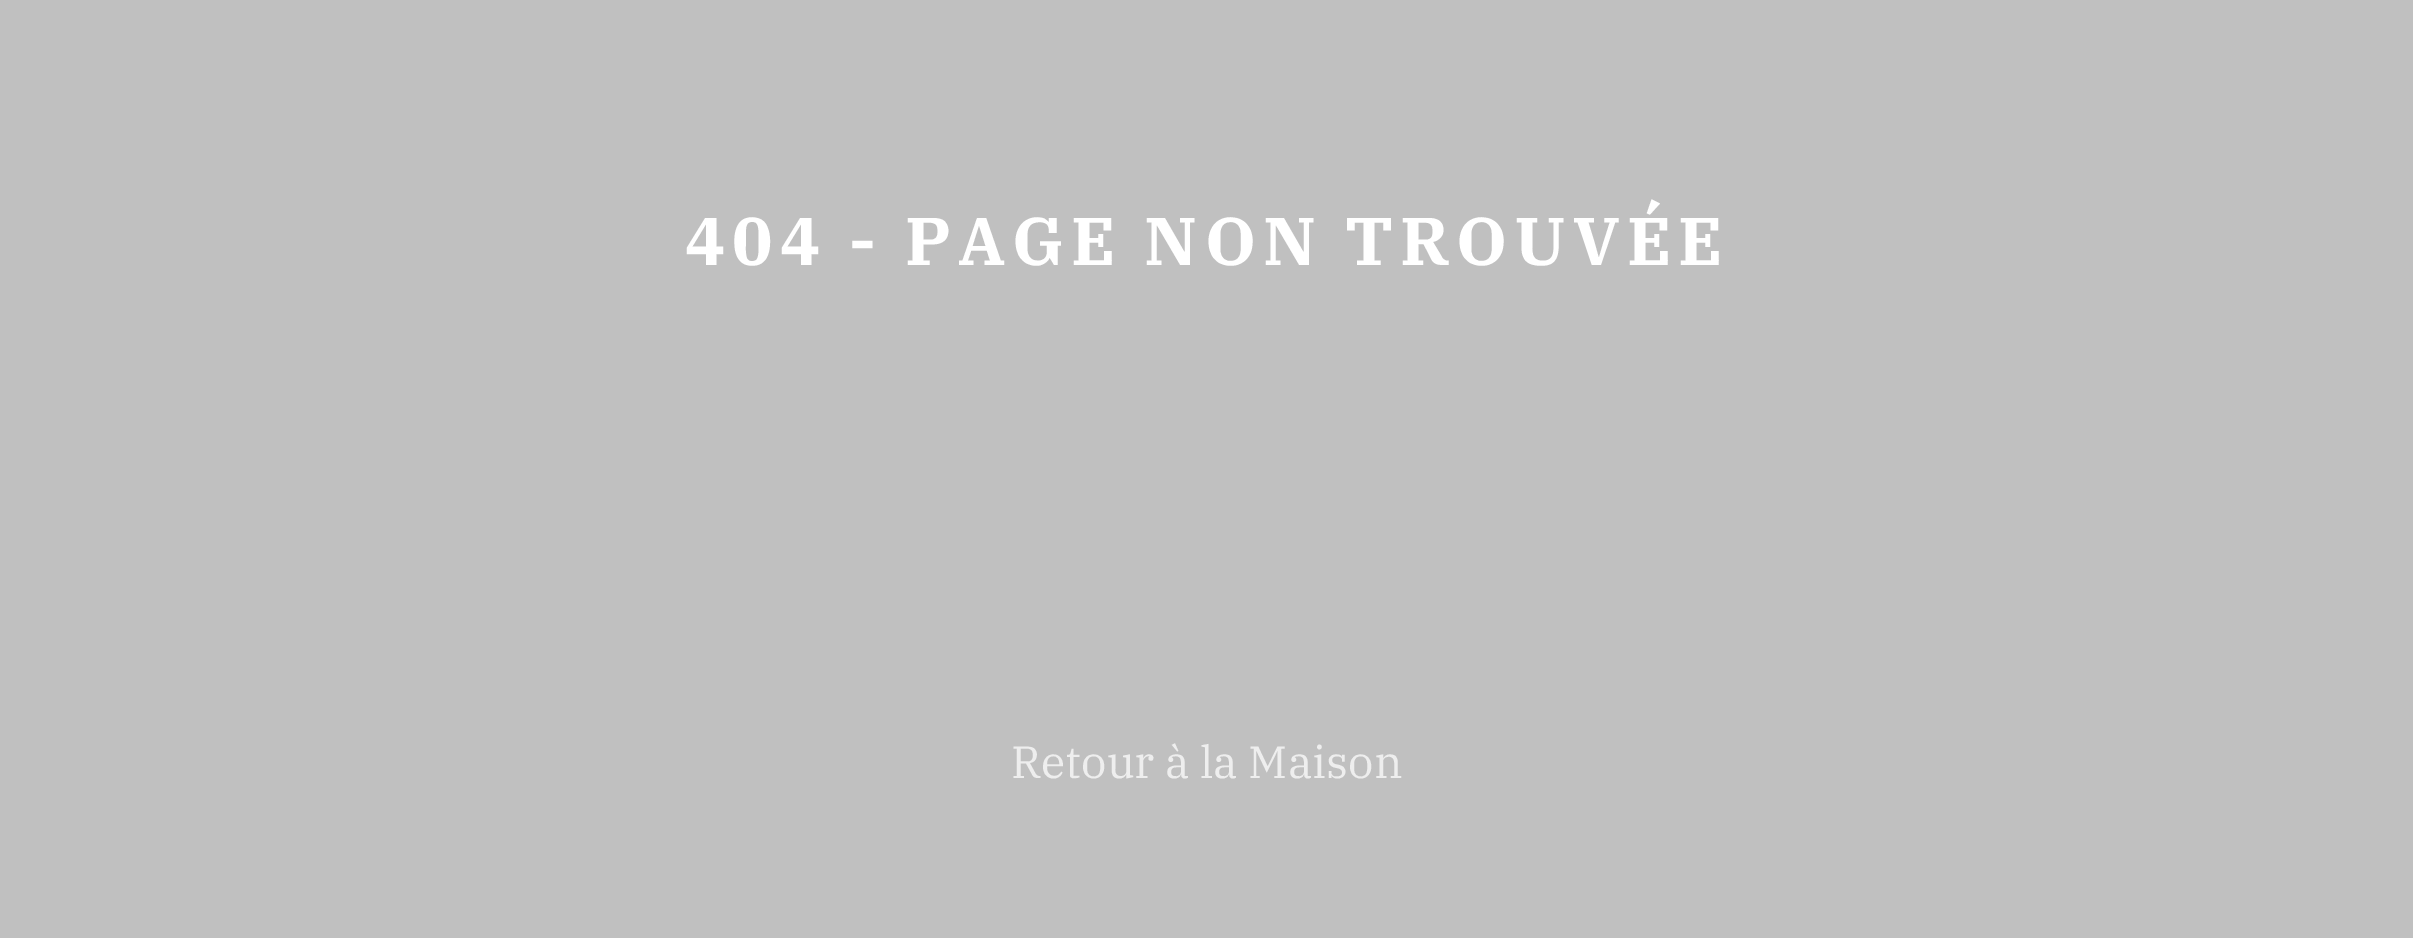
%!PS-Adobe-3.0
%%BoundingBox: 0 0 2413 938
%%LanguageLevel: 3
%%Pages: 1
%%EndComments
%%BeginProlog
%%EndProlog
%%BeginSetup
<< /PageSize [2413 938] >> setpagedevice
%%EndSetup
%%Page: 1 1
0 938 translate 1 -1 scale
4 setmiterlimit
0.753 setgray
0 0 2413 938 rectfill
/IBMPlexSerif-Bold [67.5 0 0 -67.5 0 0] selectfont
1 setgray
685 265 moveto 6.75 0 (404 - PAGE NON TROUVÉE) ashow
/IBMPlexSerif-Regular [45 0 0 -45 0 0] selectfont
0.933 setgray
1011 778 moveto (Retour à la Maison) show
showpage
%%EOF
